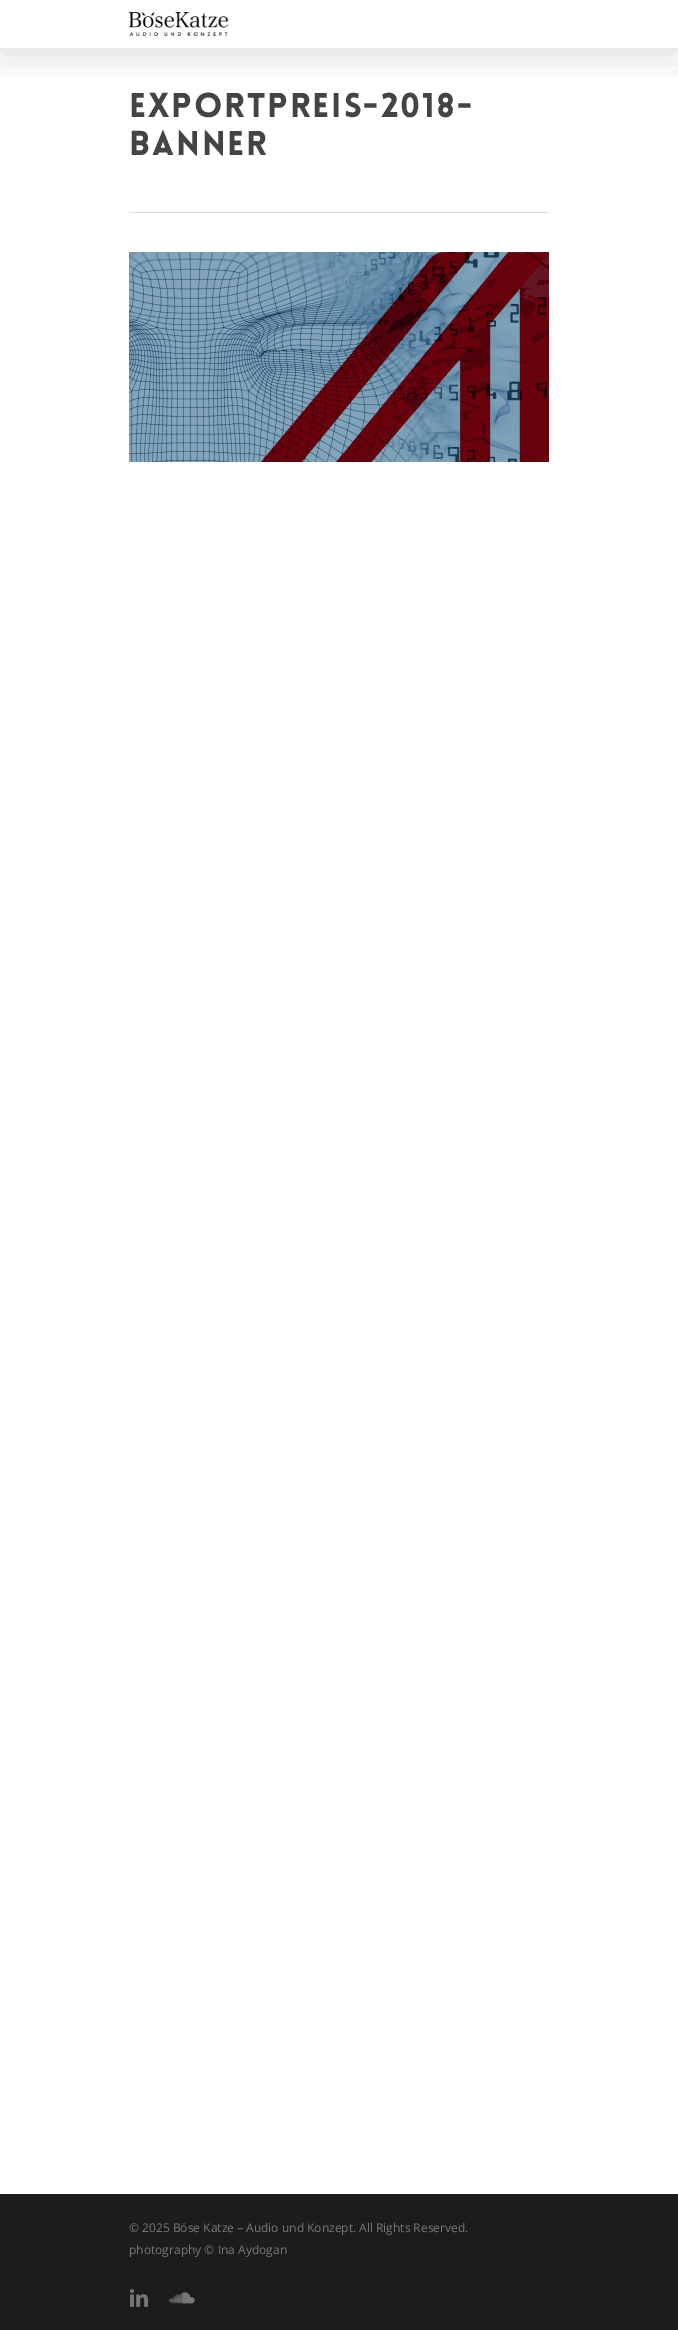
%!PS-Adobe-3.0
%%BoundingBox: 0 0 678 2330
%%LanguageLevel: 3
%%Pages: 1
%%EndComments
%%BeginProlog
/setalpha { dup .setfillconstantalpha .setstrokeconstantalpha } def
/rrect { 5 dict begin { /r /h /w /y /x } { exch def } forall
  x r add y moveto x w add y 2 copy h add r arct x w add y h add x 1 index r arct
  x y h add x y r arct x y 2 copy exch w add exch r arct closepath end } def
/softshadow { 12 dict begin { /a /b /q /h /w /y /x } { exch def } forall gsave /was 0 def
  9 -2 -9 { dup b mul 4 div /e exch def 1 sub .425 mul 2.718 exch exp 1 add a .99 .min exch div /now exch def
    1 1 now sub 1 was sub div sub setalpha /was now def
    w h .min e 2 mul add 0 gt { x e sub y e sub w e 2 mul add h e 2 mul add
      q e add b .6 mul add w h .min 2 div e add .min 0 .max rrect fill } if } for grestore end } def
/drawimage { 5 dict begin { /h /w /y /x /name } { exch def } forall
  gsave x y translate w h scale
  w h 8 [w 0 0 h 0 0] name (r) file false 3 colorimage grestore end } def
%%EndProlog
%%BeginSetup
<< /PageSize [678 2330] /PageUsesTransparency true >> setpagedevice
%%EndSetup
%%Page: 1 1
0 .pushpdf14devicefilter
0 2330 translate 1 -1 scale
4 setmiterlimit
1 setgray
0 0 678 2330 rectfill
gsave
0 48 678 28 rectclip
0 setgray
0 3 678 48 0 22.5 0.15 softshadow
grestore
(images/1.raw) 129 12 100 24 drawimage
0.867 setgray
129 212 420 1 rectfill
(images/2.raw) 129 252 420 210 drawimage
0.11 setgray
0 2194 678 136 rectfill
(images/3.raw) 130 2289 18 18 drawimage
(images/4.raw) 169 2292 26 12 drawimage
/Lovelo-Black [33.75 0 0 -33.75 0 0] selectfont
0.267 setgray
129 117 moveto 2 0 (EXPORTPREIS-2018-) ashow
129 155 moveto 2 0 (BANNER) ashow
/OpenSans-Regular [12 0 0 -12 0 0] selectfont
0.467 setgray
129 2232 moveto (© 2025 Böse Katze – Audio und Konzept. All Rights Reserved.) show
129 2254 moveto (photography © Ina Aydogan) show
.poppdf14devicefilter showpage
%%EOF
